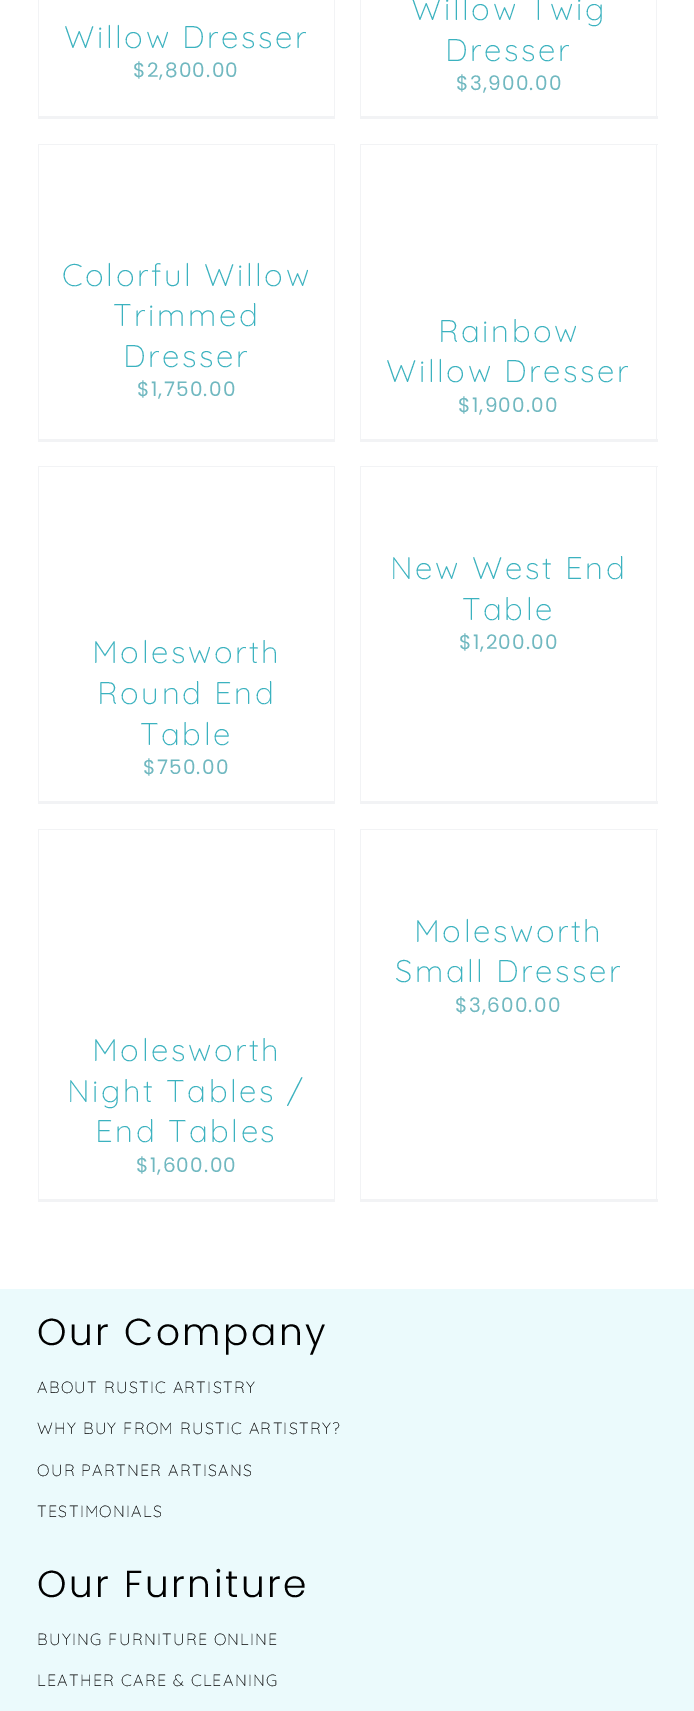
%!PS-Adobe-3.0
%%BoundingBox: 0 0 694 1711
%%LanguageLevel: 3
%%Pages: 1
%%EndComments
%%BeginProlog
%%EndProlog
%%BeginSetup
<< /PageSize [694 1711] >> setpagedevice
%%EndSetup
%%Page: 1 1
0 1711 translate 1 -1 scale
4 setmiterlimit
1 setgray
0 0 694 1711 rectfill
0.949 0.953 0.961 setrgbcolor
334 0 1 119 rectfill
38 116 297 3 rectfill
38 0 1 119 rectfill
656 0 1 119 rectfill
360 116 298 3 rectfill
360 0 1 119 rectfill
38 144 297 1 rectfill
334 144 1 297 rectfill
38 439 297 3 rectfill
38 144 1 297 rectfill
360 144 298 1 rectfill
656 144 1 297 rectfill
360 439 298 3 rectfill
360 144 1 297 rectfill
360 466 298 1 rectfill
656 466 1 338 rectfill
360 801 298 3 rectfill
360 466 1 338 rectfill
38 466 297 1 rectfill
334 466 1 338 rectfill
38 801 297 3 rectfill
38 466 1 338 rectfill
360 829 298 1 rectfill
656 829 1 372 rectfill
360 1199 298 3 rectfill
360 829 1 372 rectfill
38 829 297 1 rectfill
334 829 1 372 rectfill
38 1199 297 3 rectfill
38 829 1 372 rectfill
0.922 0.98 0.988 setrgbcolor
0 1289 694 422 rectfill
/Quicksand-Light [31.25 0 0 -31.25 0 0] selectfont
0.231 0.698 0.749 setrgbcolor
64 48 moveto 2.5 0 (Willow Dresser) ashow
/Poppins-Regular [20 0 0 -20 0 0] selectfont
0.439 0.722 0.753 setrgbcolor
133 77 moveto 1.25 0 ($2,800.00) ashow
/Quicksand-Light [31.25 0 0 -31.25 0 0] selectfont
0.231 0.698 0.749 setrgbcolor
411 20 moveto 2.5 0 (Willow Twig) ashow
445 61 moveto 2.5 0 (Dresser) ashow
/Poppins-Regular [20 0 0 -20 0 0] selectfont
0.439 0.722 0.753 setrgbcolor
456 90 moveto 1.25 0 ($3,900.00) ashow
/Quicksand-Light [31.25 0 0 -31.25 0 0] selectfont
0.231 0.698 0.749 setrgbcolor
62 286 moveto 2.5 0 (Colorful Willow) ashow
113 326 moveto 2.5 0 (Trimmed) ashow
123 367 moveto 2.5 0 (Dresser) ashow
/Poppins-Regular [20 0 0 -20 0 0] selectfont
0.439 0.722 0.753 setrgbcolor
137 396 moveto 1.25 0 ($1,750.00) ashow
/Quicksand-Light [31.25 0 0 -31.25 0 0] selectfont
0.231 0.698 0.749 setrgbcolor
438 342 moveto 2.5 0 (Rainbow) ashow
386 382 moveto 2.5 0 (Willow Dresser) ashow
/Poppins-Regular [20 0 0 -20 0 0] selectfont
0.439 0.722 0.753 setrgbcolor
458 412 moveto 1.25 0 ($1,900.00) ashow
/Quicksand-Light [31.25 0 0 -31.25 0 0] selectfont
0.231 0.698 0.749 setrgbcolor
390 579 moveto 2.5 0 (New West End) ashow
462 620 moveto 2.5 0 (Table) ashow
/Poppins-Regular [20 0 0 -20 0 0] selectfont
0.439 0.722 0.753 setrgbcolor
459 649 moveto 1.25 0 ($1,200.00) ashow
/Quicksand-Light [31.25 0 0 -31.25 0 0] selectfont
0.231 0.698 0.749 setrgbcolor
92 663 moveto 2.5 0 (Molesworth) ashow
97 704 moveto 2.5 0 (Round End) ashow
140 745 moveto 2.5 0 (Table) ashow
/Poppins-Regular [20 0 0 -20 0 0] selectfont
0.439 0.722 0.753 setrgbcolor
143 774 moveto 1.25 0 ($750.00) ashow
/Quicksand-Light [31.25 0 0 -31.25 0 0] selectfont
0.231 0.698 0.749 setrgbcolor
414 942 moveto 2.5 0 (Molesworth) ashow
395 982 moveto 2.5 0 (Small Dresser) ashow
/Poppins-Regular [20 0 0 -20 0 0] selectfont
0.439 0.722 0.753 setrgbcolor
455 1012 moveto 1.25 0 ($3,600.00) ashow
/Quicksand-Light [31.25 0 0 -31.25 0 0] selectfont
0.231 0.698 0.749 setrgbcolor
92 1061 moveto 2.5 0 (Molesworth) ashow
67 1102 moveto 2.5 0 (Night Tables /) ashow
95 1142 moveto 2.5 0 (End Tables) ashow
/Poppins-Regular [20 0 0 -20 0 0] selectfont
0.439 0.722 0.753 setrgbcolor
136 1172 moveto 1.25 0 ($1,600.00) ashow
/Poppins-Light [37.5 0 0 -37.5 0 0] selectfont
0 setgray
37 1345 moveto 2.5 0 (Our Company) ashow
/Quicksand-Light [16.25 0 0 -16.25 0 0] selectfont
37 1393 moveto 1.25 0 (ABOUT RUSTIC ARTISTRY) ashow
37 1434 moveto 1.25 0 (WHY BUY FROM RUSTIC ARTISTRY?) ashow
37 1476 moveto 1.25 0 (OUR PARTNER ARTISANS) ashow
37 1517 moveto 1.25 0 (TESTIMONIALS) ashow
/Poppins-Light [37.5 0 0 -37.5 0 0] selectfont
37 1597 moveto 2.5 0 (Our Furniture) ashow
/Quicksand-Light [16.25 0 0 -16.25 0 0] selectfont
37 1645 moveto 1.25 0 (BUYING FURNITURE ONLINE) ashow
37 1686 moveto 1.25 0 (LEATHER CARE & CLEANING) ashow
showpage
%%EOF
